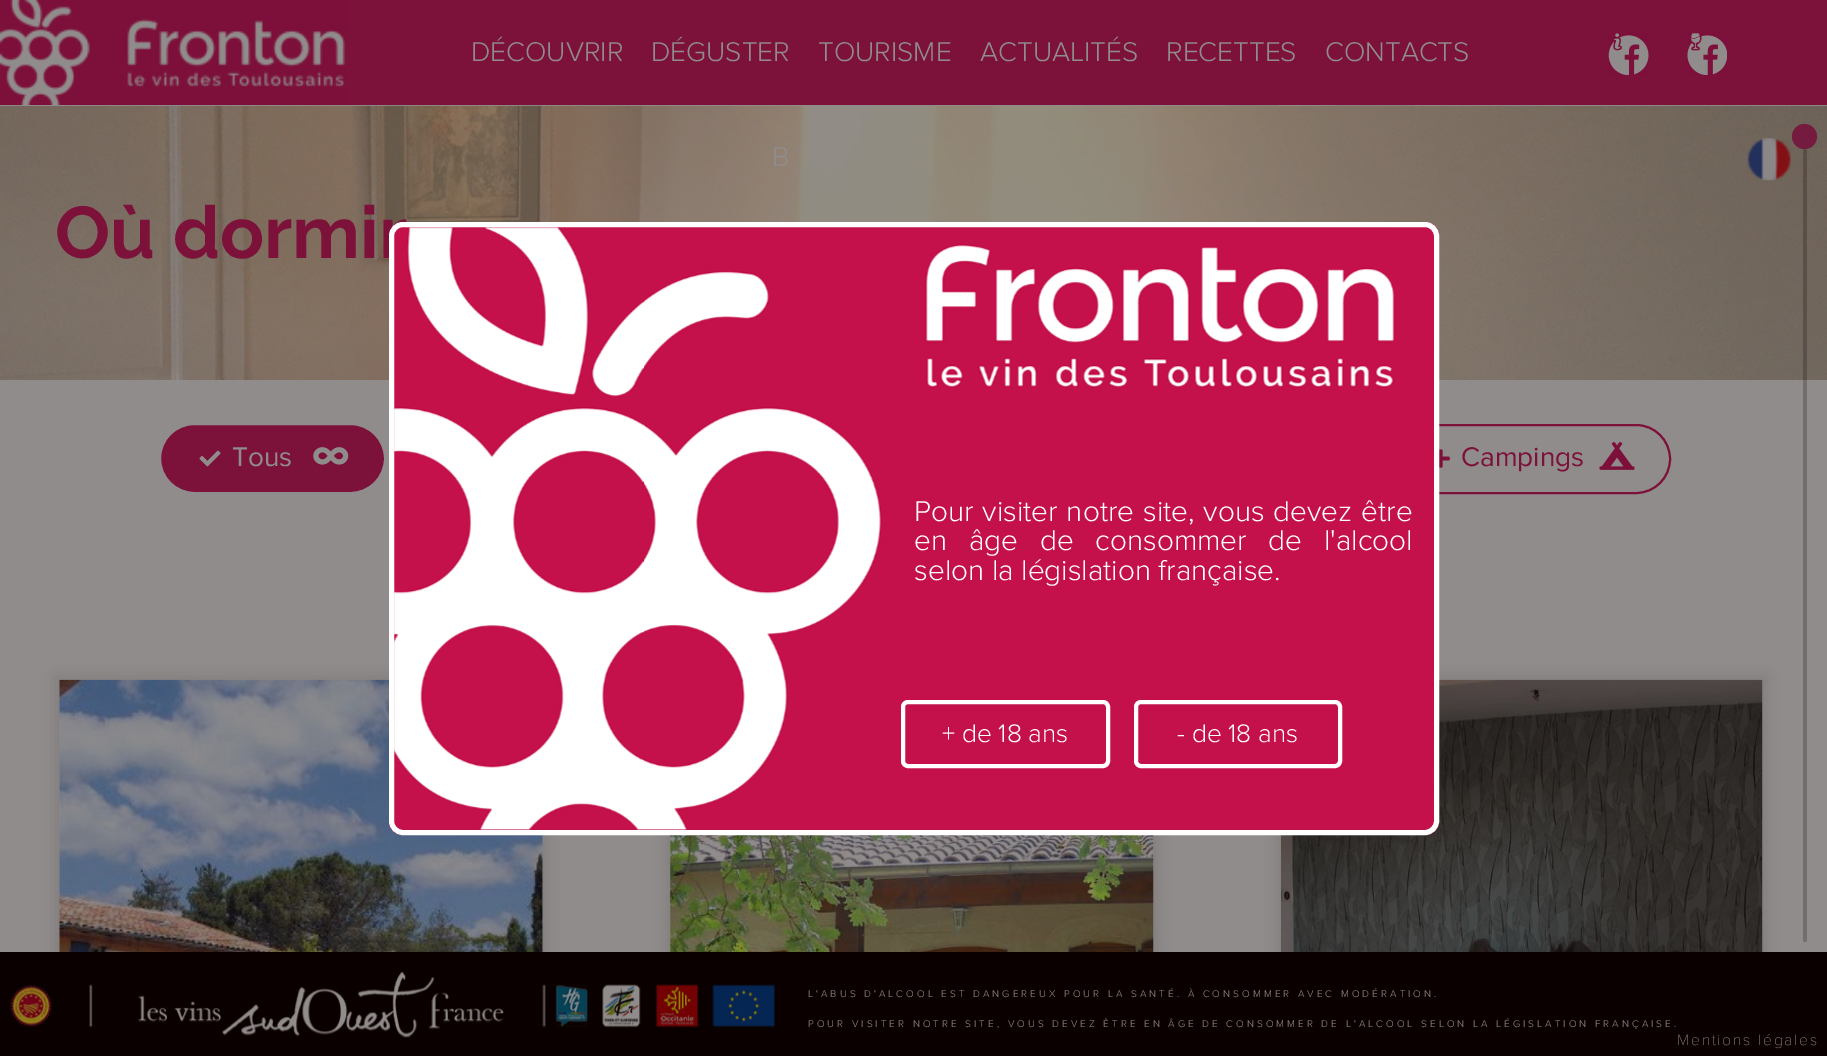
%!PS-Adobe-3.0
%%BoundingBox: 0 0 1827 1056
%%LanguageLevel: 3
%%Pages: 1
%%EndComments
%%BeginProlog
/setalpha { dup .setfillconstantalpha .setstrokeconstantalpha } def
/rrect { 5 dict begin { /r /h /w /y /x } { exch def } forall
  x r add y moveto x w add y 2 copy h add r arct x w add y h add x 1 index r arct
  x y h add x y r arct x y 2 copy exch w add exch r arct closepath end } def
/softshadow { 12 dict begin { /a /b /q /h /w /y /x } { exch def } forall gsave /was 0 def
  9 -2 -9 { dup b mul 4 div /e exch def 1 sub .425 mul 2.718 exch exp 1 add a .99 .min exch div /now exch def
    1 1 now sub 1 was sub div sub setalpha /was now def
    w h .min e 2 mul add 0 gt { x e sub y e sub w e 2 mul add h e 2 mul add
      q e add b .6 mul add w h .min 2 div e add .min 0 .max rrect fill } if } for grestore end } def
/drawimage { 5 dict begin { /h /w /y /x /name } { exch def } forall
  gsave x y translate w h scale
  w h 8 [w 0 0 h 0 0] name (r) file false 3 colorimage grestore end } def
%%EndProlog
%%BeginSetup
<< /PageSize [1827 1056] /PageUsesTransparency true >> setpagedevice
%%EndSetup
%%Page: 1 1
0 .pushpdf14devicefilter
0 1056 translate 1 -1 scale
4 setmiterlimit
0.569 0.549 0.549 setrgbcolor
0 0 1827 1056 rectfill
0.486 0.067 0.227 setrgbcolor
0 0 1827 105 rectfill
(images/1.raw) 0 0 346 105 drawimage
(images/5.raw) 1223 105 193 1 drawimage
(images/6.raw) 0 105 1827 275 drawimage
(images/2.raw) 1747 138 44 43 drawimage
(images/3.raw) 1608 33 41 42 drawimage
(images/4.raw) 1687 33 40 42 drawimage
158.5 422.5 228 72 36 rrect gsave fill grestore
0.569 0.549 0.549 setrgbcolor
5 setlinewidth
stroke
(images/7.raw) 199 450 22 17 drawimage
(images/8.raw) 313 447 36 18 drawimage
0.486 0.067 0.227 setrgbcolor
2 setlinewidth
1392 425 278 68 34 rrect stroke
(images/9.raw) 1439 449 11 19 drawimage
(images/10.raw) 1599 441 36 29 drawimage
0.427 0.408 0.408 setrgbcolor
56 677 490 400 0 7 0.44 softshadow
(images/11.raw) 59 679 484 273 drawimage
667 677 490 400 0 7 0.44 softshadow
(images/12.raw) 670 835 484 117 drawimage
1278 677 488 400 0 7 0.44 softshadow
(images/13.raw) 1281 679 482 273 drawimage
0.75 setalpha
0.463 0.012 0.216 setrgbcolor
newpath 1804.5 136.5 12.5 0 360 arc closepath fill
0.22 setalpha
0.043 0 0 setrgbcolor
1803 149 4 793 2 rrect fill
1 setalpha
0 952 1827 104 rectfill
(images/15.raw) 10 972 765 66 drawimage
/ProximaNova-Light [28 0 0 -28 0 0] selectfont
0.569 0.549 0.549 setrgbcolor
471 61 moveto (DÉCOUVRIR) show
651 61 moveto (DÉGUSTER) show
818 61 moveto (TOURISME) show
980 61 moveto (ACTUALITÉS) show
1166 61 moveto (RECETTES) show
1325 61 moveto (CONTACTS) show
772 166 moveto (B) show
/Raleway-Bold [73 0 0 -73 0 0] selectfont
0.486 0.067 0.227 setrgbcolor
55 258 moveto (Où dormir) show
/ProximaNova-Regular [28 0 0 -28 0 0] selectfont
0.569 0.549 0.549 setrgbcolor
232 466 moveto (Tous) show
0.486 0.067 0.227 setrgbcolor
1461 466 moveto (Campings) show
0.769 0.067 0.294 setrgbcolor
389 222 1050 613 14 rrect fill
(images/14.raw) 393 227 1002 604 drawimage
1 setgray
5 setlinewidth
391.5 224.5 1045 608 11.5 rrect stroke
/ProximaNova-Light [29.75 0 0 -29.75 0 0] selectfont
914 521 moveto 1.25 0 32 (Pour visiter notre site, vous devez être) widthshow
914 550 moveto 14 0 32 (en âge de consommer de l'alcool) widthshow
914 580 moveto (selon la législation française.) show
4 setlinewidth
903 702 205 64 5 rrect stroke
/ProximaNova-Light [26.25 0 0 -26.25 0 0] selectfont
942 742 moveto (+ de 18 ans) show
1136 702 204 64 5 rrect stroke
1177 742 moveto (- de 18 ans) show
/ProximaNova-Light [10.05 0 0 -10.05 0 0] selectfont
0.569 0.549 0.549 setrgbcolor
808 997 moveto 3.01 0 (L'ABUS D'ALCOOL EST DANGEREUX POUR LA SANTÉ. À CONSOMMER AVEC MODÉRATION.) ashow
808 1027 moveto 3.01 0 (POUR VISITER NOTRE SITE, VOUS DEVEZ ÊTRE EN ÂGE DE CONSOMMER DE L'ALCOOL SELON LA LÉGISLATION FRANÇAISE.) ashow
/ProximaNova-Thin [15.75 0 0 -15.75 0 0] selectfont
1677 1045 moveto 1.75 0 (Mentions légales) ashow
.poppdf14devicefilter showpage
%%EOF
